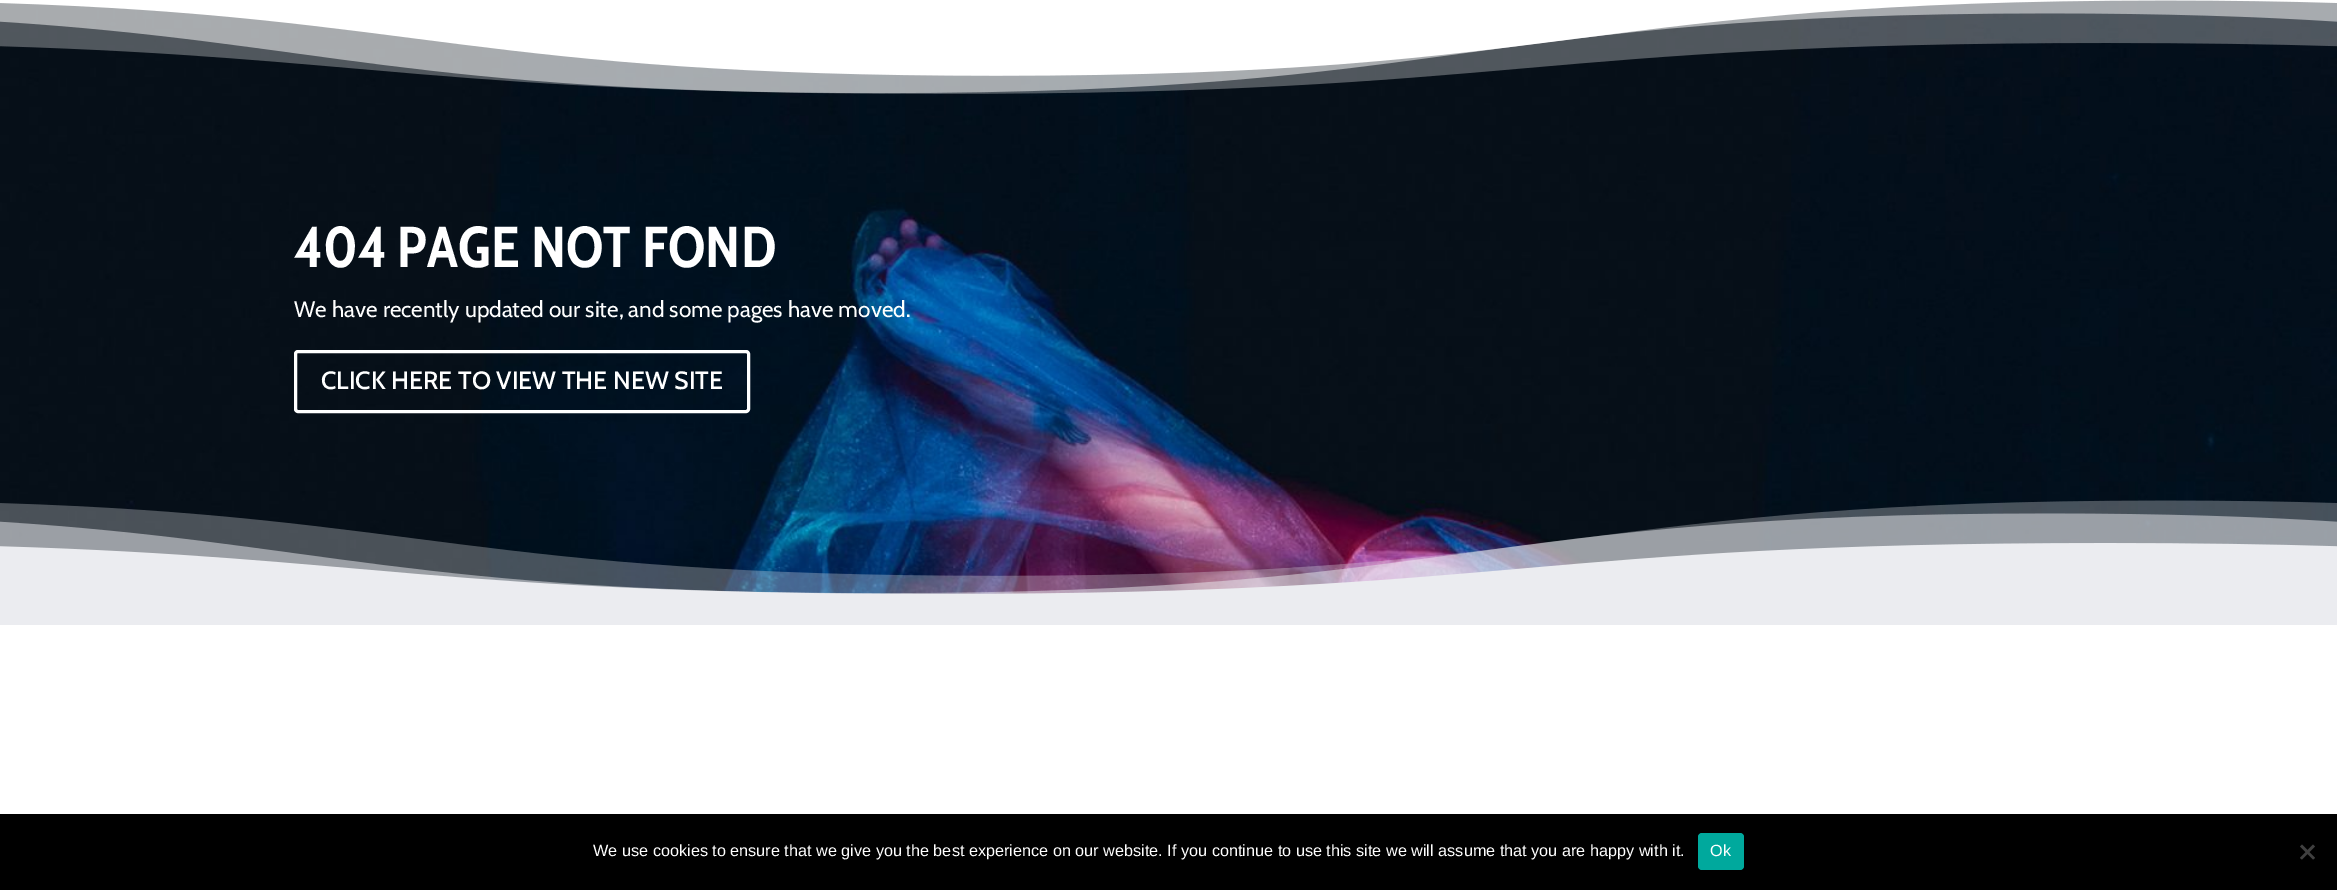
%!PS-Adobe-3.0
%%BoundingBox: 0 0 2337 890
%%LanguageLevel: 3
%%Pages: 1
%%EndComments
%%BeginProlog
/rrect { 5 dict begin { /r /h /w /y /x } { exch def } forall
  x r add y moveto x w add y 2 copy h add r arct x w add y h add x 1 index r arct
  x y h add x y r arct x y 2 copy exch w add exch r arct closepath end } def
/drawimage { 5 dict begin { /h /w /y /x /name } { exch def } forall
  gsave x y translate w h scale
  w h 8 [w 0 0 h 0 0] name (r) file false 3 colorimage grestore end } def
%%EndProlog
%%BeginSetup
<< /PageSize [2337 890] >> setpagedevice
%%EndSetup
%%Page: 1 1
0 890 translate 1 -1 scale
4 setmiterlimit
1 setgray
0 0 2337 890 rectfill
(images/2.raw) 0 0 2337 594 drawimage
(images/1.raw) 0 0 2337 94 drawimage
3 setlinewidth
295.5 351.5 453 60 2.5 rrect stroke
(images/3.raw) 0 500 2337 125 drawimage
0 setgray
0 814 2337 76 rectfill
0 0.663 0.616 setrgbcolor
1698 833 46 37 4 rrect fill
0.251 setgray
newpath 2313 844.5 moveto 2315 846.5 lineto 2302 859.5 lineto 2300 858 lineto closepath fill
newpath 2300 846.5 moveto 2302 844.5 lineto 2315 858 lineto 2313 859.5 lineto closepath fill
/CabinCondensed-Bold [57.5 0 0 -57.5 0 0] selectfont
1 setgray
294 267 moveto (404 PAGE NOT FOND) show
/Cabin-Regular [22.5 0 0 -22.5 0 0] selectfont
294 317 moveto (We have recently updated our site, and some pages have moved.) show
/Cabin-Medium [25 0 0 -25 0 0] selectfont
321 389 moveto (CLICK HERE TO VIEW THE NEW SITE) show
/LiberationSans-Regular [16.25 0 0 -16.25 0 0] selectfont
593 856 moveto (We use cookies to ensure that we give you the best experience on our website. If you continue to use this site we will assume that you are happy with it.) show
1710 856 moveto (Ok) show
showpage
%%EOF
